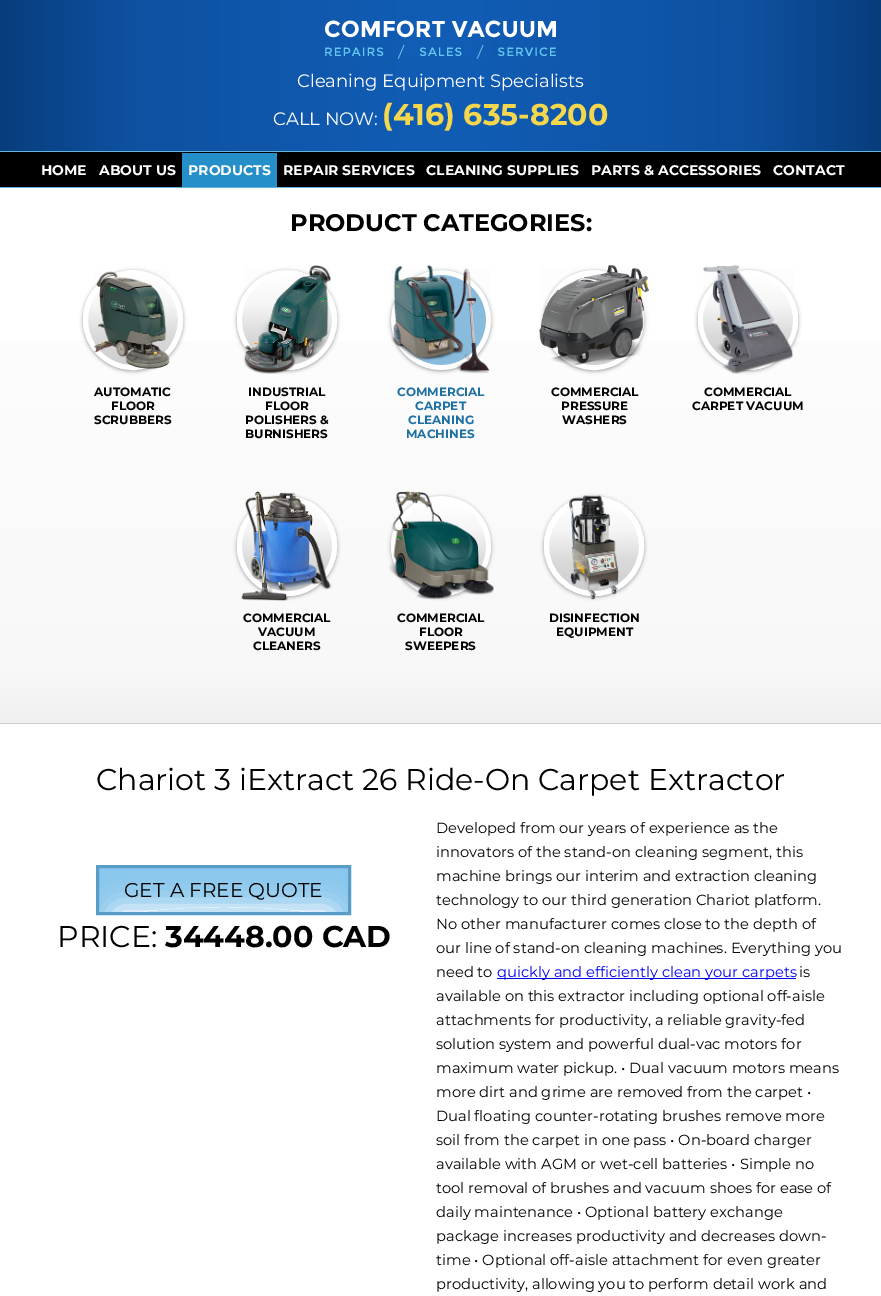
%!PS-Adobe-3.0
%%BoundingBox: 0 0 881 1296
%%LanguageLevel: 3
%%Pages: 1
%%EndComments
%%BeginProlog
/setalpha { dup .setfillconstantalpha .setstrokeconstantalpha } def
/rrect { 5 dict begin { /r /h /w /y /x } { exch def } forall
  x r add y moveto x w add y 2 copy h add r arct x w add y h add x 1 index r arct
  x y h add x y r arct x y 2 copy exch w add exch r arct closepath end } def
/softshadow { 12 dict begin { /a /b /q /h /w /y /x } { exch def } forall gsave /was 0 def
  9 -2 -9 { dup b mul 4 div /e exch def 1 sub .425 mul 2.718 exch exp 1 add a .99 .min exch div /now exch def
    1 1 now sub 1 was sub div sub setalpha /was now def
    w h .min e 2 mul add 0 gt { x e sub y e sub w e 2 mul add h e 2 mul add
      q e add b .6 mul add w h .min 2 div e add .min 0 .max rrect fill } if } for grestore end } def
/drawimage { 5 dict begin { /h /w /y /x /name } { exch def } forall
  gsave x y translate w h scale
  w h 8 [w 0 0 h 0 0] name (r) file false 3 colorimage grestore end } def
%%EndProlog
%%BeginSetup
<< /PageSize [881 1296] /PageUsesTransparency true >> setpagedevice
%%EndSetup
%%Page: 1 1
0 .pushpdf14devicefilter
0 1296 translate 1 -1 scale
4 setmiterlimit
1 setgray
0 0 881 1296 rectfill
gsave newpath 0 0 moveto 881 0 lineto 881 151 lineto 0 151 lineto closepath clip newpath
<< /ShadingType 2 /ColorSpace /DeviceRGB /Coords [0 76 881 75] /Extend [true true] /Function << /FunctionType 3 /Domain [0 1] /Functions [<< /FunctionType 2 /Domain [0 1] /C0 [0.031 0.239 0.486] /C1 [0.055 0.318 0.631] /N 1 >> << /FunctionType 2 /Domain [0 1] /C0 [0.055 0.318 0.631] /C1 [0.067 0.365 0.714] /N 1 >> << /FunctionType 2 /Domain [0 1] /C0 [0.067 0.365 0.714] /C1 [0.055 0.318 0.631] /N 1 >> << /FunctionType 2 /Domain [0 1] /C0 [0.055 0.318 0.631] /C1 [0.031 0.239 0.486] /N 1 >>] /Bounds [0.15 0.5 0.85] /Encode [0 1 0 1 0 1 0 1] >> >> shfill grestore
(images/1.raw) 325 20 231 39 drawimage
0 setgray
0 152 881 35 rectfill
0.404 0.702 0.855 setrgbcolor
0 151 881 1 rectfill
0.404 0.698 0.851 setrgbcolor
0 187 881 1 rectfill
0.141 0.561 0.788 setrgbcolor
182 153 95 34 rectfill
gsave newpath 0 341 moveto 881 341 lineto 881 723 lineto 0 723 lineto closepath clip newpath
<< /ShadingType 2 /ColorSpace /DeviceRGB /Coords [440 161 441 723] /Extend [true true] /Function << /FunctionType 3 /Domain [0 1] /Functions [<< /FunctionType 2 /Domain [0 1] /C0 [1 1 1] /C1 [0.973 0.973 0.973] /N 1 >> << /FunctionType 2 /Domain [0 1] /C0 [0.973 0.973 0.973] /C1 [0.941 0.941 0.941] /N 1 >>] /Bounds [0.9] /Encode [0 1 0 1] >> >> shfill grestore
0.6 setgray
83 271 100 100 50 2 1 softshadow
gsave
83 270 100 100 50 rrect clip newpath
gsave newpath 83 275 moveto 183 275 lineto 183 365 lineto 83 365 lineto closepath clip newpath
<< /ShadingType 2 /ColorSpace /DeviceRGB /Coords [133 275 133 365] /Extend [true true] /Function << /FunctionType 3 /Domain [0 1] /Functions [<< /FunctionType 2 /Domain [0 1] /C0 [1 1 1] /C1 [0.961 0.961 0.961] /N 1 >> << /FunctionType 2 /Domain [0 1] /C0 [0.961 0.961 0.961] /C1 [0.855 0.855 0.855] /N 1 >> << /FunctionType 2 /Domain [0 1] /C0 [0.855 0.855 0.855] /C1 [0.804 0.804 0.804] /N 1 >>] /Bounds [0.33 0.66] /Encode [0 1 0 1 0 1] >> >> shfill grestore
grestore
1 setgray
5 setlinewidth
newpath 133 320 47.5 0 360 arc closepath stroke
(images/2.raw) 94 271 76 98 drawimage
0.6 setgray
237 271 100 100 50 2 1 softshadow
gsave
237 270 100 100 50 rrect clip newpath
gsave newpath 237 275 moveto 337 275 lineto 337 365 lineto 237 365 lineto closepath clip newpath
<< /ShadingType 2 /ColorSpace /DeviceRGB /Coords [287 275 287 365] /Extend [true true] /Function << /FunctionType 3 /Domain [0 1] /Functions [<< /FunctionType 2 /Domain [0 1] /C0 [1 1 1] /C1 [0.961 0.961 0.961] /N 1 >> << /FunctionType 2 /Domain [0 1] /C0 [0.961 0.961 0.961] /C1 [0.855 0.855 0.855] /N 1 >> << /FunctionType 2 /Domain [0 1] /C0 [0.855 0.855 0.855] /C1 [0.804 0.804 0.804] /N 1 >>] /Bounds [0.33 0.66] /Encode [0 1 0 1 0 1] >> >> shfill grestore
grestore
1 setgray
newpath 287 320 47.5 0 360 arc closepath stroke
(images/3.raw) 243 265 88 109 drawimage
0.6 setgray
391 271 100 100 50 2 1 softshadow
0.537 0.733 0.863 setrgbcolor
newpath 441 320 47.5 0 360 arc closepath gsave fill grestore
1 setgray
stroke
(images/4.raw) 391 265 99 109 drawimage
0.6 setgray
544 271 100 100 50 2 1 softshadow
gsave
544 270 100 100 50 rrect clip newpath
gsave newpath 544 275 moveto 644 275 lineto 644 365 lineto 544 365 lineto closepath clip newpath
<< /ShadingType 2 /ColorSpace /DeviceRGB /Coords [594 275 594 365] /Extend [true true] /Function << /FunctionType 3 /Domain [0 1] /Functions [<< /FunctionType 2 /Domain [0 1] /C0 [1 1 1] /C1 [0.961 0.961 0.961] /N 1 >> << /FunctionType 2 /Domain [0 1] /C0 [0.961 0.961 0.961] /C1 [0.855 0.855 0.855] /N 1 >> << /FunctionType 2 /Domain [0 1] /C0 [0.855 0.855 0.855] /C1 [0.804 0.804 0.804] /N 1 >>] /Bounds [0.33 0.66] /Encode [0 1 0 1 0 1] >> >> shfill grestore
grestore
1 setgray
newpath 594 320 47.5 0 360 arc closepath stroke
(images/5.raw) 539 265 110 101 drawimage
0.6 setgray
698 271 100 100 50 2 1 softshadow
gsave
698 270 100 100 50 rrect clip newpath
gsave newpath 698 275 moveto 798 275 lineto 798 365 lineto 698 365 lineto closepath clip newpath
<< /ShadingType 2 /ColorSpace /DeviceRGB /Coords [748 275 748 365] /Extend [true true] /Function << /FunctionType 3 /Domain [0 1] /Functions [<< /FunctionType 2 /Domain [0 1] /C0 [1 1 1] /C1 [0.961 0.961 0.961] /N 1 >> << /FunctionType 2 /Domain [0 1] /C0 [0.961 0.961 0.961] /C1 [0.855 0.855 0.855] /N 1 >> << /FunctionType 2 /Domain [0 1] /C0 [0.855 0.855 0.855] /C1 [0.804 0.804 0.804] /N 1 >>] /Bounds [0.33 0.66] /Encode [0 1 0 1 0 1] >> >> shfill grestore
grestore
1 setgray
newpath 748 320 47.5 0 360 arc closepath stroke
(images/6.raw) 703 265 91 109 drawimage
0.6 setgray
237 497 100 100 50 2 1 softshadow
gsave
237 496 100 100 50 rrect clip newpath
gsave newpath 237 501 moveto 337 501 lineto 337 591 lineto 237 591 lineto closepath clip newpath
<< /ShadingType 2 /ColorSpace /DeviceRGB /Coords [287 501 287 591] /Extend [true true] /Function << /FunctionType 3 /Domain [0 1] /Functions [<< /FunctionType 2 /Domain [0 1] /C0 [1 1 1] /C1 [0.961 0.961 0.961] /N 1 >> << /FunctionType 2 /Domain [0 1] /C0 [0.961 0.961 0.961] /C1 [0.855 0.855 0.855] /N 1 >> << /FunctionType 2 /Domain [0 1] /C0 [0.855 0.855 0.855] /C1 [0.804 0.804 0.804] /N 1 >>] /Bounds [0.33 0.66] /Encode [0 1 0 1 0 1] >> >> shfill grestore
grestore
1 setgray
newpath 287 546 47.5 0 360 arc closepath stroke
(images/7.raw) 241 491 91 110 drawimage
0.6 setgray
391 497 100 100 50 2 1 softshadow
gsave
391 496 100 100 50 rrect clip newpath
gsave newpath 391 501 moveto 491 501 lineto 491 591 lineto 391 591 lineto closepath clip newpath
<< /ShadingType 2 /ColorSpace /DeviceRGB /Coords [441 501 441 591] /Extend [true true] /Function << /FunctionType 3 /Domain [0 1] /Functions [<< /FunctionType 2 /Domain [0 1] /C0 [1 1 1] /C1 [0.961 0.961 0.961] /N 1 >> << /FunctionType 2 /Domain [0 1] /C0 [0.961 0.961 0.961] /C1 [0.855 0.855 0.855] /N 1 >> << /FunctionType 2 /Domain [0 1] /C0 [0.855 0.855 0.855] /C1 [0.804 0.804 0.804] /N 1 >>] /Bounds [0.33 0.66] /Encode [0 1 0 1 0 1] >> >> shfill grestore
grestore
1 setgray
newpath 441 546 47.5 0 360 arc closepath stroke
(images/8.raw) 389 491 105 109 drawimage
0.6 setgray
544 497 100 100 50 2 1 softshadow
gsave
544 496 100 100 50 rrect clip newpath
gsave newpath 544 501 moveto 644 501 lineto 644 591 lineto 544 591 lineto closepath clip newpath
<< /ShadingType 2 /ColorSpace /DeviceRGB /Coords [594 501 594 591] /Extend [true true] /Function << /FunctionType 3 /Domain [0 1] /Functions [<< /FunctionType 2 /Domain [0 1] /C0 [1 1 1] /C1 [0.961 0.961 0.961] /N 1 >> << /FunctionType 2 /Domain [0 1] /C0 [0.961 0.961 0.961] /C1 [0.855 0.855 0.855] /N 1 >> << /FunctionType 2 /Domain [0 1] /C0 [0.855 0.855 0.855] /C1 [0.804 0.804 0.804] /N 1 >>] /Bounds [0.33 0.66] /Encode [0 1 0 1 0 1] >> >> shfill grestore
grestore
1 setgray
newpath 594 546 47.5 0 360 arc closepath stroke
(images/9.raw) 569 495 50 105 drawimage
0.8 setgray
0 723 881 1 rectfill
0.541 0.78 0.925 setrgbcolor
newpath 97.5 866.5 moveto 349.5 866.5 lineto 349.5 913.5 lineto 97.5 913.5 lineto closepath gsave fill grestore
0.341 0.616 0.784 setrgbcolor
3 setlinewidth
stroke
gsave
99 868 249 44 rectclip
newpath 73 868 moveto 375 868 lineto 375 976 lineto 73 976 lineto closepath 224 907 moveto 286 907 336 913.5 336 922 curveto 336 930.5 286 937 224 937 curveto 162 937 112 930.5 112 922 curveto 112 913.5 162 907 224 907 curveto closepath eoclip newpath
1 setgray
112 907 224 30 15 12.5 1 softshadow
grestore
gsave
99 868 249 44 rectclip
0.5 setalpha
1 setgray
newpath 224 907 moveto 286 907 336 913.5 336 922 curveto 336 930.5 286 937 224 937 curveto 162 937 112 930.5 112 922 curveto 112 913.5 162 907 224 907 curveto closepath fill
grestore
0 0 0.933 setrgbcolor
497 978 299 1 rectfill
/Montserrat-Regular [18 0 0 -18 0 0] selectfont
1 setgray
297 87 moveto (Cleaning Equipment Specialists) show
273 125 moveto (CALL NOW:) show
/Montserrat-Bold [30 0 0 -30 0 0] selectfont
0.961 0.843 0.302 setrgbcolor
382 125 moveto (\(416\) 635-8200) show
/Montserrat-Bold [14 0 0 -14 0 0] selectfont
1 setgray
41 175 moveto (HOME) show
99 175 moveto (ABOUT US) show
188 175 moveto (PRODUCTS) show
283 175 moveto (REPAIR SERVICES) show
426 175 moveto (CLEANING SUPPLIES) show
591 175 moveto (PARTS & ACCESSORIES) show
773 175 moveto (CONTACT) show
/Montserrat-Bold [24 0 0 -24 0 0] selectfont
0 setgray
290 231 moveto (PRODUCT CATEGORIES:) show
/Montserrat-Bold [12 0 0 -12 0 0] selectfont
94 396 moveto (AUTOMATIC) show
111 410 moveto (FLOOR) show
94 424 moveto (SCRUBBERS) show
248 396 moveto (INDUSTRIAL) show
265 410 moveto (FLOOR) show
245 424 moveto (POLISHERS &) show
245 438 moveto (BURNISHERS) show
0.118 0.439 0.639 setrgbcolor
397 396 moveto (COMMERCIAL) show
415 410 moveto (CARPET) show
408 424 moveto (CLEANING) show
406 438 moveto (MACHINES) show
0 setgray
551 396 moveto (COMMERCIAL) show
561 410 moveto (PRESSURE) show
562 424 moveto (WASHERS) show
704 396 moveto (COMMERCIAL) show
692 410 moveto (CARPET VACUUM) show
243 622 moveto (COMMERCIAL) show
258 636 moveto (VACUUM) show
253 650 moveto (CLEANERS) show
397 622 moveto (COMMERCIAL) show
419 636 moveto (FLOOR) show
405 650 moveto (SWEEPERS) show
549 622 moveto (DISINFECTION) show
556 636 moveto (EQUIPMENT) show
/Montserrat-Regular [30 0 0 -30 0 0] selectfont
96 790 moveto (Chariot 3 iExtract 26 Ride-On Carpet Extractor) show
/Montserrat-Regular [20 0 0 -20 0 0] selectfont
124 897 moveto (GET A FREE QUOTE) show
/Montserrat-Regular [30 0 0 -30 0 0] selectfont
57 947 moveto (PRICE:) show
/Montserrat-Bold [30 0 0 -30 0 0] selectfont
165 947 moveto (34448.00 CAD) show
/Montserrat-Regular [14.7 0 0 -14.7 0 0] selectfont
436 833 moveto (Developed from our years of experience as the) show
436 857 moveto (innovators of the stand-on cleaning segment, this) show
436 881 moveto (machine brings our interim and extraction cleaning) show
436 905 moveto (technology to our third generation Chariot platform.) show
436 929 moveto (No other manufacturer comes close to the depth of) show
436 953 moveto (our line of stand-on cleaning machines. Everything you) show
436 977 moveto (need to) show
0 0 0.933 setrgbcolor
497 977 moveto (quickly and efficiently clean your carpets) show
0 setgray
799 977 moveto (is) show
436 1001 moveto (available on this extractor including optional off-aisle) show
436 1025 moveto (attachments for productivity, a reliable gravity-fed) show
436 1049 moveto (solution system and powerful dual-vac motors for) show
436 1073 moveto (maximum water pickup. • Dual vacuum motors means) show
436 1097 moveto (more dirt and grime are removed from the carpet •) show
436 1121 moveto (Dual floating counter-rotating brushes remove more) show
436 1145 moveto (soil from the carpet in one pass • On-board charger) show
436 1169 moveto (available with AGM or wet-cell batteries • Simple no) show
436 1193 moveto (tool removal of brushes and vacuum shoes for ease of) show
436 1217 moveto (daily maintenance • Optional battery exchange) show
436 1241 moveto (package increases productivity and decreases down-) show
436 1265 moveto (time • Optional off-aisle attachment for even greater) show
436 1289 moveto (productivity, allowing you to perform detail work and) show
.poppdf14devicefilter showpage
%%EOF
